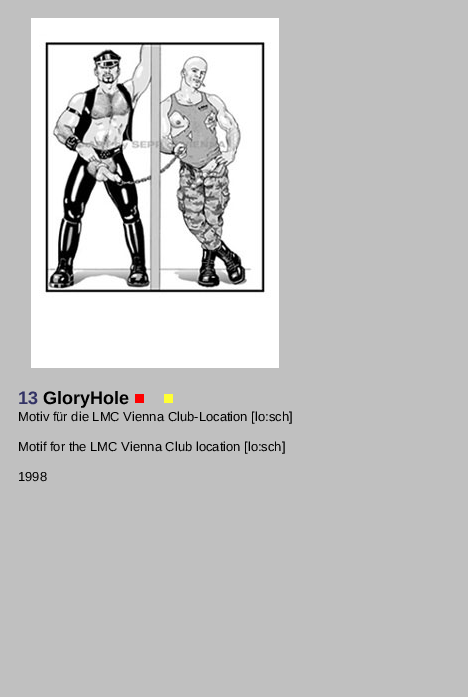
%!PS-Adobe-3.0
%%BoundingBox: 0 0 468 697
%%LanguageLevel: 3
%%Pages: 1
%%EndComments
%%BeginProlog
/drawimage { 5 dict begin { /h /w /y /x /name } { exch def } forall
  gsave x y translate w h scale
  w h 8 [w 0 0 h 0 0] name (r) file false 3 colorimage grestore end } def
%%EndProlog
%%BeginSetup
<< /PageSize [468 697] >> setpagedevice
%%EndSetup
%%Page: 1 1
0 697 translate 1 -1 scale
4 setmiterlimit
0.753 setgray
0 0 468 697 rectfill
(images/1.raw) 31 18 248 350 drawimage
1 0 0 setrgbcolor
135 394 9 9 rectfill
1 1 0.2 setrgbcolor
164 394 9 9 rectfill
/LiberationSans-Bold [18 0 0 -18 0 0] selectfont
0.2 0.2 0.4 setrgbcolor
18 404 moveto (13) show
0 setgray
43 404 moveto (GloryHole) show
/LiberationSans-Regular [13 0 0 -13 0 0] selectfont
18 421 moveto (Motiv für die LMC Vienna Club-Location [lo:sch]) show
18 451 moveto (Motif for the LMC Vienna Club location [lo:sch]) show
18 481 moveto (1998) show
showpage
%%EOF
